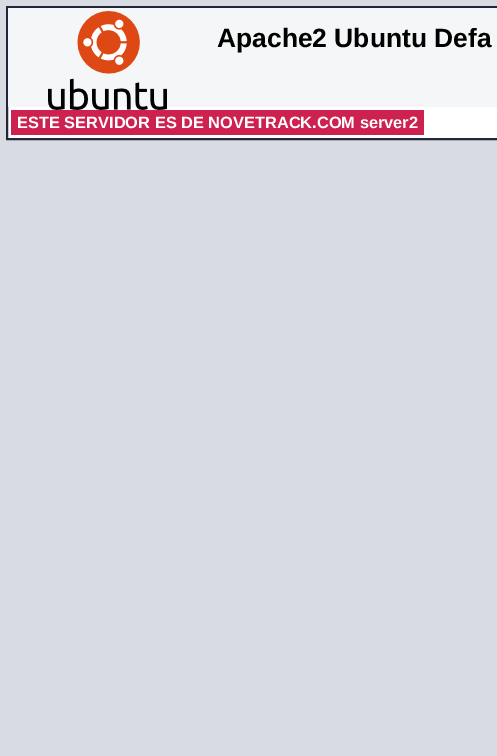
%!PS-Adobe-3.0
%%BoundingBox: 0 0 497 756
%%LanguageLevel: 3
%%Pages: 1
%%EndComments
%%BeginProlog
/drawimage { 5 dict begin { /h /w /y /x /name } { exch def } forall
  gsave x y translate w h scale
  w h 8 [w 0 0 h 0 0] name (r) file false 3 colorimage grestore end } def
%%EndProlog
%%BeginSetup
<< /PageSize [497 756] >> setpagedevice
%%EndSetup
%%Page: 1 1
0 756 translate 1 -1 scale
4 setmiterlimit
0.847 0.859 0.886 setrgbcolor
0 0 497 756 rectfill
1 setgray
8 107 489 31 rectfill
0.129 0.153 0.22 setrgbcolor
2 setlinewidth
7 7 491 132 rectstroke
0.961 0.965 0.969 setrgbcolor
8 8 489 99 rectfill
(images/1.raw) 48 11 119 99 drawimage
0.804 0.129 0.31 setrgbcolor
11 110 413 25 rectfill
/LiberationSans-Bold [26.4 0 0 -26.4 0 0] selectfont
0 setgray
217 47 moveto (Apache2 Ubuntu Defa) show
/LiberationSans-Bold [16.4 0 0 -16.4 0 0] selectfont
1 setgray
17 128 moveto (ESTE SERVIDOR ES DE NOVETRACK.COM server2) show
showpage
%%EOF
